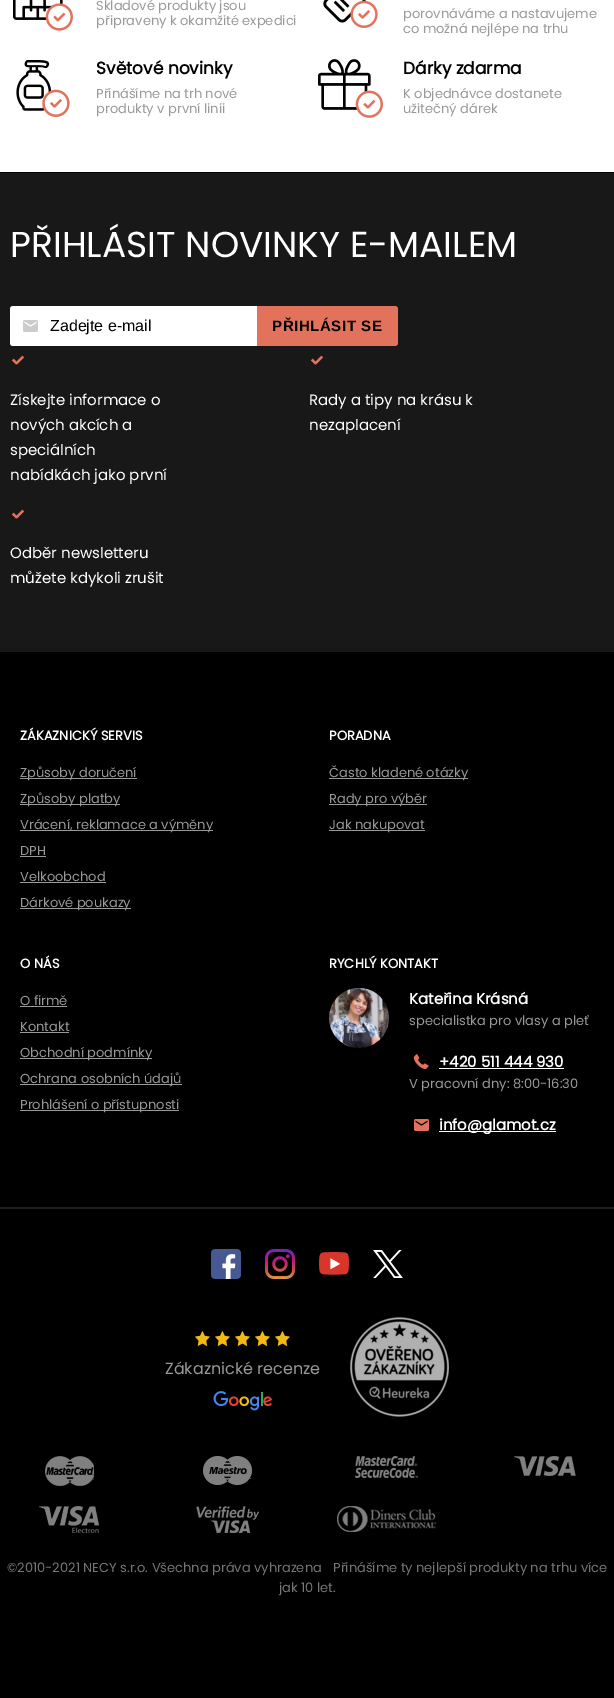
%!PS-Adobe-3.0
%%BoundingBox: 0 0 614 1698
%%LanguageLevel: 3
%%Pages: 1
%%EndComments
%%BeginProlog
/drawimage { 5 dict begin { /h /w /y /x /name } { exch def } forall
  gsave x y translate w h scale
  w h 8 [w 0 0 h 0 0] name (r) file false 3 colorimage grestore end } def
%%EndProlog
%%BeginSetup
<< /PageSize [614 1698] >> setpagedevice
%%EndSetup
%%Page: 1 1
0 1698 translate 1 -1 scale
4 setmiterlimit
1 setgray
0 0 614 1698 rectfill
(images/1.raw) 13 0 60 31 drawimage
(images/2.raw) 323 0 55 28 drawimage
(images/3.raw) 16 60 54 57 drawimage
(images/4.raw) 318 59 65 59 drawimage
0 setgray
0 172 614 1 rectfill
0.094 setgray
0 173 614 479 rectfill
1 setgray
newpath 13 306 moveto 50 306 lineto 50 346 lineto 13 346 lineto 11.5 346 10 344.5 10 343 curveto 10 309 lineto 10 307.5 11.5 306 13 306 curveto closepath fill
(images/5.raw) 23 320 15 12 drawimage
50 306 207 40 rectfill
0.886 0.447 0.357 setrgbcolor
newpath 257 306 moveto 395 306 lineto 396.5 306 398 307.5 398 309 curveto 398 343 lineto 398 344.5 396.5 346 395 346 curveto 257 346 lineto closepath fill
(images/6.raw) 11 355 14 10 drawimage
(images/6.raw) 310 355 14 10 drawimage
(images/6.raw) 11 509 14 10 drawimage
0 setgray
0 652 614 1046 rectfill
0.6 setgray
20 778 117 1 rectfill
20 804 100 1 rectfill
20 830 193 1 rectfill
20 856 26 1 rectfill
20 882 86 1 rectfill
20 908 111 1 rectfill
329 778 139 1 rectfill
329 804 98 1 rectfill
329 830 96 1 rectfill
20 1006 47 1 rectfill
20 1032 49 1 rectfill
20 1058 132 1 rectfill
20 1084 162 1 rectfill
20 1110 159 1 rectfill
(images/7.raw) 329 988 60 60 drawimage
(images/8.raw) 413 1054 16 15 drawimage
1 setgray
439 1068 125 1 rectfill
(images/9.raw) 414 1119 15 12 drawimage
439 1131 117 1 rectfill
0.118 setgray
0 1207 614 2 rectfill
(images/10.raw) 211 1249 30 30 drawimage
(images/11.raw) 265 1249 30 30 drawimage
(images/12.raw) 319 1252 30 23 drawimage
(images/13.raw) 373 1250 30 28 drawimage
(images/14.raw) 195 1331 15 15 drawimage
(images/14.raw) 215 1331 15 15 drawimage
(images/14.raw) 235 1331 15 15 drawimage
(images/14.raw) 255 1331 15 15 drawimage
(images/14.raw) 275 1331 15 15 drawimage
(images/15.raw) 213 1391 59 20 drawimage
(images/16.raw) 350 1317 99 100 drawimage
(images/17.raw) 45 1456 49 30 drawimage
(images/18.raw) 203 1456 49 29 drawimage
(images/19.raw) 355 1456 63 22 drawimage
(images/20.raw) 514 1456 62 20 drawimage
(images/21.raw) 39 1506 60 27 drawimage
(images/22.raw) 196 1506 63 27 drawimage
(images/23.raw) 337 1506 99 26 drawimage
/Poppins-Regular [13 0 0 -13 0 0] selectfont
0.6 setgray
96 10 moveto (Skladové produkty jsou) show
96 25 moveto (připraveny k okamžité expedici) show
403 18 moveto (porovnáváme a nastavujeme) show
403 33 moveto (co možná nejlépe na trhu) show
/Poppins-Bold [17 0 0 -17 0 0] selectfont
0 setgray
96 74 moveto (Světové novinky) show
/Poppins-Regular [13 0 0 -13 0 0] selectfont
0.6 setgray
96 98 moveto (Přinášíme na trh nové) show
96 113 moveto (produkty v první linii) show
/Poppins-Bold [17 0 0 -17 0 0] selectfont
0 setgray
403 74 moveto (Dárky zdarma) show
/Poppins-Regular [13 0 0 -13 0 0] selectfont
0.6 setgray
403 98 moveto (K objednávce dostanete) show
403 113 moveto (užitečný dárek) show
/Poppins-Regular [36 0 0 -36 0 0] selectfont
1 setgray
10 257 moveto (PŘIHLÁSIT NOVINKY E-MAILEM) show
/LiberationSans-Regular [16 0 0 -16 0 0] selectfont
0 setgray
50 331 moveto (Zadejte e-mail) show
/LiberationSans-Bold [15 0 0 -15 0 0] selectfont
272 331 moveto 0.6 0 (PŘIHLÁSIT SE) ashow
/Poppins-Regular [15 0 0 -15 0 0] selectfont
1 setgray
10 405 moveto (Získejte informace o) show
10 430 moveto (nových akcích a) show
10 455 moveto (speciálních) show
10 480 moveto (nabídkách jako první) show
309 405 moveto (Rady a tipy na krásu k) show
309 430 moveto (nezaplacení) show
10 558 moveto (Odběr newsletteru) show
10 583 moveto (můžete kdykoli zrušit) show
/Poppins-Bold [13 0 0 -13 0 0] selectfont
20 740 moveto (ZÁKAZNICKÝ SERVIS) show
/Poppins-Regular [13 0 0 -13 0 0] selectfont
0.6 setgray
20 777 moveto (Způsoby doručení) show
20 803 moveto (Způsoby platby) show
20 829 moveto (Vrácení, reklamace a výměny) show
20 855 moveto (DPH) show
20 881 moveto (Velkoobchod) show
20 907 moveto (Dárkové poukazy) show
/Poppins-Bold [13 0 0 -13 0 0] selectfont
1 setgray
329 740 moveto (PORADNA) show
/Poppins-Regular [13 0 0 -13 0 0] selectfont
0.6 setgray
329 777 moveto (Často kladené otázky) show
329 803 moveto (Rady pro výběr) show
329 829 moveto (Jak nakupovat) show
/Poppins-Bold [13 0 0 -13 0 0] selectfont
1 setgray
20 968 moveto (O NÁS) show
/Poppins-Regular [13 0 0 -13 0 0] selectfont
0.6 setgray
20 1005 moveto (O firmě) show
20 1031 moveto (Kontakt) show
20 1057 moveto (Obchodní podmínky) show
20 1083 moveto (Ochrana osobních údajů) show
20 1109 moveto (Prohlášení o přístupnosti) show
/Poppins-Bold [13 0 0 -13 0 0] selectfont
1 setgray
329 968 moveto (RYCHLÝ KONTAKT) show
/Poppins-Bold [15 0 0 -15 0 0] selectfont
409 1004 moveto (Kateřina Krásná) show
/Poppins-Regular [13 0 0 -13 0 0] selectfont
0.6 setgray
409 1025 moveto (specialistka pro vlasy a pleť) show
/Poppins-Bold [15 0 0 -15 0 0] selectfont
1 setgray
439 1067 moveto (+420 511 444 930) show
/Poppins-Regular [13 0 0 -13 0 0] selectfont
0.6 setgray
409 1088 moveto (V pracovní dny: 8:00-16:30) show
/Poppins-Bold [15 0 0 -15 0 0] selectfont
1 setgray
439 1130 moveto (info@glamot.cz) show
/Poppins-Regular [16 0 0 -16 0 0] selectfont
0.6 setgray
165 1374 moveto (Zákaznické recenze) show
/Poppins-Regular [13 0 0 -13 0 0] selectfont
0.467 setgray
7 1572 moveto (©2010-2021 NECY s.r.o. Všechna práva vyhrazena) show
333 1572 moveto (Přinášíme ty nejlepší produkty na trhu více) show
279 1592 moveto (jak 10 let.) show
showpage
%%EOF
